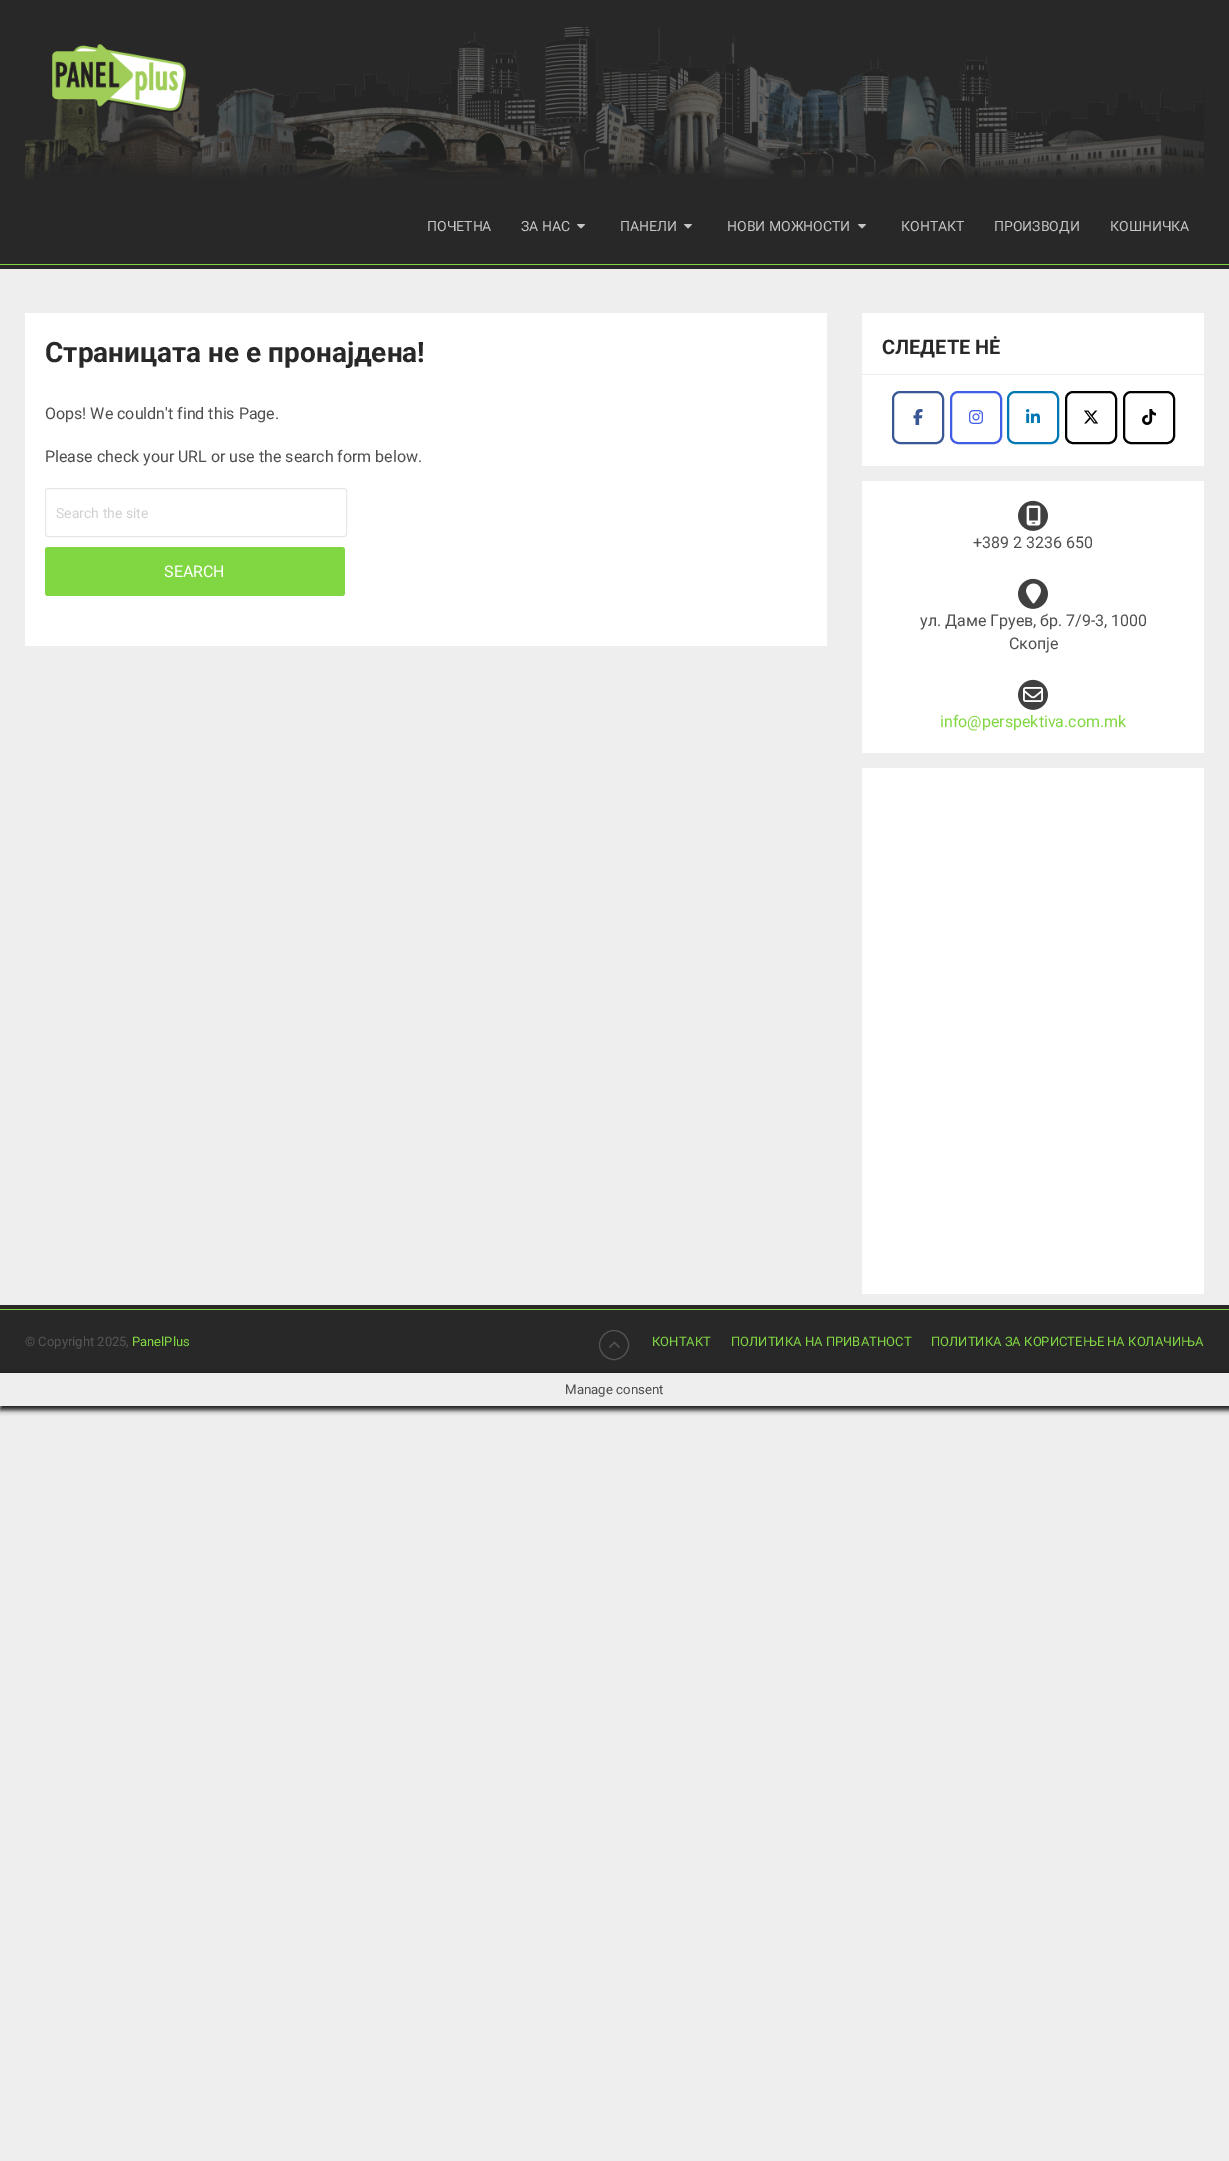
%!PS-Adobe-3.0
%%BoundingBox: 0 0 1229 2161
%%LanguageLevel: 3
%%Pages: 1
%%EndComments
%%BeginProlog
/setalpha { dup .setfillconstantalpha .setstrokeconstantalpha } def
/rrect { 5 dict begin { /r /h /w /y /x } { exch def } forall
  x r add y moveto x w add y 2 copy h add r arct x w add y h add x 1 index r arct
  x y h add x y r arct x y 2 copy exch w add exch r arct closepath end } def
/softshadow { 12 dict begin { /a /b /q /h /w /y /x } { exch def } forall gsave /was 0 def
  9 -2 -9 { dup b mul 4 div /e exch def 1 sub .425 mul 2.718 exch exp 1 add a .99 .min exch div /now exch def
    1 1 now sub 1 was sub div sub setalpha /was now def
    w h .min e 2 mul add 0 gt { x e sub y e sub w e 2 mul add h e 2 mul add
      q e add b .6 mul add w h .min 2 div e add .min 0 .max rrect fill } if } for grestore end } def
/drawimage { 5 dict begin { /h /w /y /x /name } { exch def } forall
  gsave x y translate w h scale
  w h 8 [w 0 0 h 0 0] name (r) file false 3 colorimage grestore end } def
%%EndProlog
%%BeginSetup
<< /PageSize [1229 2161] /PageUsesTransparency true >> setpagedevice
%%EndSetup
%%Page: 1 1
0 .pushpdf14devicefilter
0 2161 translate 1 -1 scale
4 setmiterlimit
0.933 setgray
0 0 1229 2161 rectfill
0.157 setgray
0 265 1229 4 rectfill
0 0 1229 264 rectfill
0.506 0.843 0.259 setrgbcolor
0 264 1229 1 rectfill
(images/1.raw) 25 27 1179 152 drawimage
(images/2.raw) 577 224 8 5 drawimage
(images/2.raw) 684 224 8 5 drawimage
(images/2.raw) 858 224 8 5 drawimage
1 setgray
25 313 802 333 rectfill
0.91 setgray
45.5 488.5 301 48 2.5 rrect stroke
0.506 0.843 0.259 setrgbcolor
45 547 300 49 3 rrect fill
1 setgray
862 313 342 153 rectfill
0.925 setgray
862 374 342 1 rectfill
0.227 0.341 0.584 setrgbcolor
2 setlinewidth
893 392 50 51 7 rrect stroke
(images/3.raw) 913 409 10 16 drawimage
0.251 0.365 0.902 setrgbcolor
951 392 50 51 7 rrect stroke
(images/4.raw) 969 410 14 14 drawimage
0.004 0.467 0.706 setrgbcolor
1008 392 50 51 7 rrect stroke
(images/5.raw) 1026 409 14 14 drawimage
0 setgray
1066 392 50 51 7 rrect stroke
(images/6.raw) 1084 410 15 14 drawimage
1124 392 50 51 7 rrect stroke
(images/7.raw) 1142 409 14 16 drawimage
1 setgray
862 481 342 272 rectfill
(images/8.raw) 1018 500 30 31 drawimage
(images/9.raw) 1026 505 15 21 drawimage
(images/8.raw) 1018 578 30 31 drawimage
(images/10.raw) 1026 583 15 21 drawimage
(images/8.raw) 1018 679 30 31 drawimage
(images/11.raw) 1023 687 20 15 drawimage
862 768 342 526 rectfill
0.157 setgray
0 1305 1229 4 rectfill
0 1310 1229 63 rectfill
0.506 0.843 0.259 setrgbcolor
0 1309 1229 1 rectfill
0.333 setgray
1 setlinewidth
newpath 614 1345 14.5 0 360 arc closepath stroke
(images/12.raw) 609 1341 11 7 drawimage
gsave
newpath 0 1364 moveto 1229 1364 lineto 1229 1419 lineto 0 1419 lineto closepath 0 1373 moveto 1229 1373 lineto 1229 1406 lineto 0 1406 lineto closepath eoclip newpath
0.086 setgray
0 1373 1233 37 0 2.5 1 softshadow
grestore
/Roboto-Regular [14 0 0 -14 0 0] selectfont
0.773 setgray
427 231 moveto (ПОЧЕТНА) show
521 231 moveto (ЗА НАС) show
620 231 moveto (ПАНЕЛИ) show
727 231 moveto (НОВИ МОЖНОСТИ) show
901 231 moveto (КОНТАКТ) show
994 231 moveto (ПРОИЗВОДИ) show
1110 231 moveto (КОШНИЧКА) show
/Roboto-Bold [28 0 0 -28 0 0] selectfont
0.157 setgray
45 362 moveto (Страницата не е пронајдена!) show
/Roboto-Regular [16 0 0 -16 0 0] selectfont
0.306 setgray
45 419 moveto (Oops! We couldn't find this Page.) show
45 462 moveto (Please check your URL or use the search form below.) show
/Roboto-Regular [14 0 0 -14 0 0] selectfont
0.816 setgray
56 518 moveto (Search the site) show
/Roboto-Regular [16 0 0 -16 0 0] selectfont
1 setgray
164 577 moveto (SEARCH) show
/Roboto-Bold [20 0 0 -20 0 0] selectfont
0.157 setgray
882 354 moveto (СЛЕДЕТЕ НĖ) show
/Roboto-Regular [16 0 0 -16 0 0] selectfont
0.306 setgray
973 548 moveto (+389 2 3236 650) show
920 626 moveto (ул. Даме Груев, бр. 7/9-3, 1000) show
1009 649 moveto (Скопје) show
0.506 0.843 0.259 setrgbcolor
940 727 moveto (info@perspektiva.com.mk) show
/Roboto-Regular [13 0 0 -13 0 0] selectfont
0.333 setgray
25 1346 moveto (© Copyright 2025,) show
0.506 0.843 0.259 setrgbcolor
132 1346 moveto (PanelPlus) show
652 1346 moveto (КОНТАКТ) show
731 1346 moveto (ПОЛИТИКА НА ПРИВАТНОСТ) show
931 1346 moveto (ПОЛИТИКА ЗА КОРИСТЕЊЕ НА КОЛАЧИЊА) show
/Roboto-Regular [13.25 0 0 -13.25 0 0] selectfont
0.306 setgray
565 1394 moveto (Manage consent) show
.poppdf14devicefilter showpage
%%EOF
